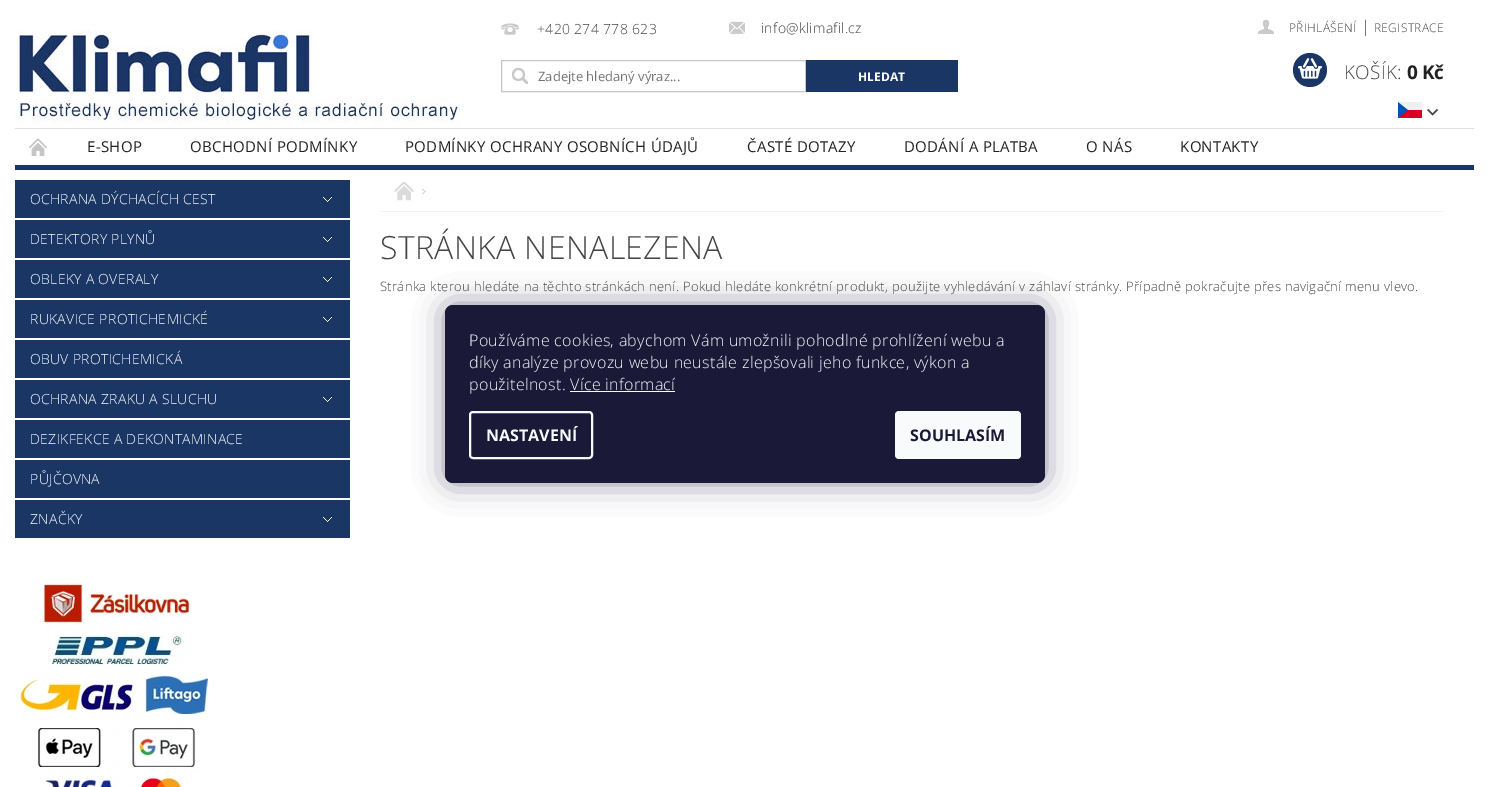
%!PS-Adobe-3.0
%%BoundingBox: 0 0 1489 787
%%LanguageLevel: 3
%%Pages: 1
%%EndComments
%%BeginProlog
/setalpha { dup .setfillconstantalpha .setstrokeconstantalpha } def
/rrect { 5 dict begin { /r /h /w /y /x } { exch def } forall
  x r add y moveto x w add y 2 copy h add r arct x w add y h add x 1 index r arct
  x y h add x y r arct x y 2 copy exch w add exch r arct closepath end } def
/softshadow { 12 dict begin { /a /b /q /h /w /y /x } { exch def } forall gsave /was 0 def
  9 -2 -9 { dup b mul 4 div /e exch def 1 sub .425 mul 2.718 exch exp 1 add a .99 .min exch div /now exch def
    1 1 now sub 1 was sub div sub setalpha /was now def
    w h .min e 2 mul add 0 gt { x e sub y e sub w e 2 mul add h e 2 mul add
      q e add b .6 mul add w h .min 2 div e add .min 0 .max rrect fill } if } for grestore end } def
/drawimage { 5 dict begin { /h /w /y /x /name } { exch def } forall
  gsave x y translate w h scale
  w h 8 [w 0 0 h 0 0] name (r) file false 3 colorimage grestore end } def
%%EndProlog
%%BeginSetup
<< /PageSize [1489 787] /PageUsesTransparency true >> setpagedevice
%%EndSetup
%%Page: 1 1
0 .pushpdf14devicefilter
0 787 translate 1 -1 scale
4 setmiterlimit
1 setgray
0 0 1489 787 rectfill
0.102 0.212 0.392 setrgbcolor
15 165 1459 5 rectfill
(images/1.raw) 16 30 296 64 drawimage
(images/2.raw) 501 23 18 12 drawimage
(images/3.raw) 729 21 16 13 drawimage
(images/4.raw) 512 68 16 16 drawimage
0.776 setgray
501.5 60.5 304 31 rectstroke
0.102 0.212 0.392 setrgbcolor
806 60 152 32 rectfill
(images/5.raw) 1258 19 16 15 drawimage
newpath 1310 70 17 0 360 arc closepath fill
(images/6.raw) 1298 58 24 21 drawimage
(images/7.raw) 1398 102 24 16 drawimage
(images/8.raw) 1427 108 12 8 drawimage
(images/9.raw) 15 99 445 24 drawimage
0.878 setgray
15 128 1459 1 rectfill
(images/10.raw) 29 138 18 18 drawimage
0.102 0.212 0.392 setrgbcolor
15 180 335 38 rectfill
(images/11.raw) 323 197 9 5 drawimage
15 220 335 38 rectfill
(images/11.raw) 323 237 9 5 drawimage
15 260 335 38 rectfill
(images/11.raw) 323 277 9 5 drawimage
15 300 335 38 rectfill
(images/11.raw) 323 317 9 5 drawimage
15 340 335 38 rectfill
15 380 335 38 rectfill
(images/11.raw) 323 397 9 5 drawimage
15 420 335 38 rectfill
15 460 335 38 rectfill
15 500 335 38 rectfill
(images/11.raw) 323 517 9 5 drawimage
(images/12.raw) 15 578 195 209 drawimage
0.949 setgray
380 211 1064 1 rectfill
(images/13.raw) 394 182 20 19 drawimage
(images/14.raw) 422 189 4 5 drawimage
0.106 0.098 0.224 setrgbcolor
445 305 600 178 8 15 0.5 softshadow
0.102 0.098 0.216 setrgbcolor
445 305 600 178 8 rrect fill
0.973 0.98 0.984 setrgbcolor
570 391 105 1 rectfill
2 setlinewidth
470 412 122 46 3 rrect stroke
895 411 126 48 4 rrect fill
/OpenSans-Light [14 0 0 -14 0 0] selectfont
0.267 setgray
537 34 moveto 0.32 0 (+420 274 778 623) ashow
761 33 moveto 0.32 0 (info@klimafil.cz) ashow
/OpenSans-Regular [13 0 0 -13 0 0] selectfont
0.459 setgray
538 81 moveto (Zadejte hledaný výraz...) show
/OpenSans-Bold [12 0 0 -12 0 0] selectfont
1 setgray
858 81 moveto (HLEDAT) show
/OpenSans-Light [12 0 0 -12 0 0] selectfont
0.267 setgray
1289 32 moveto 0.32 0 (PŘIHLÁŠENÍ) ashow
/OpenSans-Light [16 0 0 -16 0 0] selectfont
1361 32 moveto 0.32 0 (|) ashow
/OpenSans-Light [12 0 0 -12 0 0] selectfont
1374 32 moveto 0.32 0 (REGISTRACE) ashow
/OpenSans-Light [19 0 0 -19 0 0] selectfont
1344 79 moveto 0.32 0 (KOŠÍK:) ashow
/OpenSans-Bold [19 0 0 -19 0 0] selectfont
0.133 setgray
1407 79 moveto -0.5 0 (0 Kč) ashow
/OpenSans-Regular [15 0 0 -15 0 0] selectfont
87 152 moveto 0.32 0 (E-SHOP) ashow
190 152 moveto 0.32 0 (OBCHODNÍ PODMÍNKY) ashow
405 152 moveto 0.32 0 (PODMÍNKY OCHRANY OSOBNÍCH ÚDAJŮ) ashow
747 152 moveto 0.32 0 (ČASTÉ DOTAZY) ashow
904 152 moveto 0.32 0 (DODÁNÍ A PLATBA) ashow
1086 152 moveto 0.32 0 (O NÁS) ashow
1180 152 moveto 0.32 0 (KONTAKTY) ashow
/OpenSans-Light [14 0 0 -14 0 0] selectfont
1 setgray
30 204 moveto 0.32 0 (OCHRANA DÝCHACÍCH CEST) ashow
30 244 moveto 0.32 0 (DETEKTORY PLYNŮ) ashow
30 284 moveto 0.32 0 (OBLEKY A OVERALY) ashow
30 324 moveto 0.32 0 (RUKAVICE PROTICHEMICKÉ) ashow
30 364 moveto 0.32 0 (OBUV PROTICHEMICKÁ) ashow
30 404 moveto 0.32 0 (OCHRANA ZRAKU A SLUCHU) ashow
30 444 moveto 0.32 0 (DEZIKFEKCE A DEKONTAMINACE) ashow
30 484 moveto 0.32 0 (PŮJČOVNA) ashow
30 524 moveto 0.32 0 (ZNAČKY) ashow
/OpenSans-Light [32 0 0 -32 0 0] selectfont
0.267 setgray
380 259 moveto 0.32 0 (STRÁNKA NENALEZENA) ashow
/OpenSans-Light [13 0 0 -13 0 0] selectfont
380 291 moveto 0.32 0 (Stránka kterou hledáte na těchto stránkách není. Pokud hledáte konkrétní produkt, použijte vyhledávání v záhlaví stránky. Případně pokračujte přes navigační menu vlevo.) ashow
/OpenSans-Light [16 0 0 -16 0 0] selectfont
0.973 0.98 0.984 setrgbcolor
469 346 moveto 0.32 0 (Používáme cookies, abychom Vám umožnili pohodlné prohlížení webu a) ashow
469 368 moveto 0.32 0 (díky analýze provozu webu neustále zlepšovali jeho funkce, výkon a) ashow
469 390 moveto 0.32 0 (použitelnost. Více informací) ashow
/OpenSans-Bold [16 0 0 -16 0 0] selectfont
486 441 moveto (NASTAVENÍ) show
0.102 0.098 0.216 setrgbcolor
910 441 moveto (SOUHLASÍM) show
.poppdf14devicefilter showpage
%%EOF
